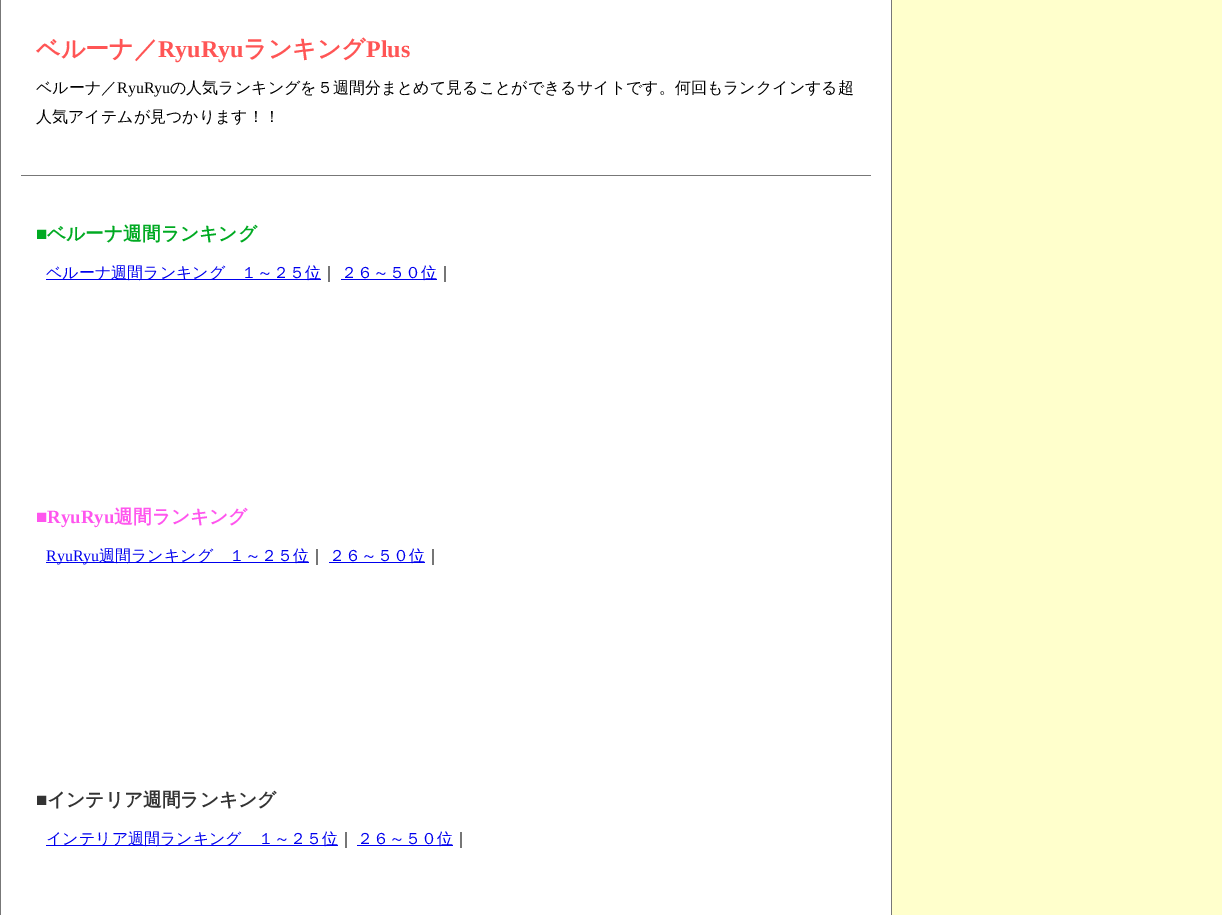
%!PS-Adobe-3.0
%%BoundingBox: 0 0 1222 915
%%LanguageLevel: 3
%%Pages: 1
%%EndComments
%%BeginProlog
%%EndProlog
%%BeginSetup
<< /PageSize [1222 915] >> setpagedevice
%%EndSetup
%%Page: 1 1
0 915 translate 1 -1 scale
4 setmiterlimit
1 1 0.8 setrgbcolor
0 0 1222 915 rectfill
1 setgray
1 0 890 915 rectfill
0.467 setgray
891 0 1 915 rectfill
0 0 1 915 rectfill
21 175 850 1 rectfill
0 0 0.933 setrgbcolor
46 279 275 1 rectfill
341 279 96 1 rectfill
46 562 263 1 rectfill
329 562 96 1 rectfill
46 845 292 1 rectfill
357 845 96 1 rectfill
/WenQuanYiZenHei-Bold [24 0 0 -24 0 0] selectfont
1 0.333 0.333 setrgbcolor
36 57 moveto (ベルーナ／) show
/LiberationSerif-Bold [24 0 0 -24 0 0] selectfont
158 57 moveto (RyuRyu) show
/WenQuanYiZenHei-Bold [24 0 0 -24 0 0] selectfont
243 57 moveto (ランキング) show
/LiberationSerif-Bold [24 0 0 -24 0 0] selectfont
366 57 moveto (Plus) show
/WenQuanYiZenHei-Medium [16 0 0 -16 0 0] selectfont
0 setgray
36 93 moveto (ベルーナ／) show
/LiberationSerif-Regular [16 0 0 -16 0 0] selectfont
117 93 moveto (RyuRyu) show
/WenQuanYiZenHei-Medium [16 0 0 -16 0 0] selectfont
170 93 moveto (の人気ランキングを５週間分まとめて見ることができるサイトです。何回もランクインする超) show
36 122 moveto (人気アイテムが見つかります！！) show
/LiberationSerif-Bold [18.75 0 0 -18.75 0 0] selectfont
0 0.667 0.133 setrgbcolor
36 240 moveto (■) show
/WenQuanYiZenHei-Bold [18.75 0 0 -18.75 0 0] selectfont
47 240 moveto (ベルーナ週間ランキング) show
/WenQuanYiZenHei-Medium [16 0 0 -16 0 0] selectfont
0 0 0.933 setrgbcolor
46 278 moveto (ベルーナ週間ランキング　１～２５位) show
0 setgray
321 278 moveto (｜) show
0 0 0.933 setrgbcolor
341 278 moveto (２６～５０位) show
0 setgray
437 278 moveto (｜) show
/LiberationSerif-Bold [18.75 0 0 -18.75 0 0] selectfont
1 0.333 0.933 setrgbcolor
36 523 moveto (■RyuRyu) show
/WenQuanYiZenHei-Bold [18.75 0 0 -18.75 0 0] selectfont
114 523 moveto (週間ランキング) show
/LiberationSerif-Regular [16 0 0 -16 0 0] selectfont
0 0 0.933 setrgbcolor
46 561 moveto (RyuRyu) show
/WenQuanYiZenHei-Medium [16 0 0 -16 0 0] selectfont
99 561 moveto (週間ランキング　１～２５位) show
0 setgray
309 561 moveto (｜) show
0 0 0.933 setrgbcolor
329 561 moveto (２６～５０位) show
0 setgray
425 561 moveto (｜) show
/LiberationSerif-Bold [18.75 0 0 -18.75 0 0] selectfont
0.2 setgray
36 806 moveto (■) show
/WenQuanYiZenHei-Bold [18.75 0 0 -18.75 0 0] selectfont
47 806 moveto (インテリア週間ランキング) show
/WenQuanYiZenHei-Medium [16 0 0 -16 0 0] selectfont
0 0 0.933 setrgbcolor
46 844 moveto (インテリア週間ランキング　１～２５位) show
0 setgray
338 844 moveto (｜) show
0 0 0.933 setrgbcolor
357 844 moveto (２６～５０位) show
0 setgray
453 844 moveto (｜) show
showpage
%%EOF
